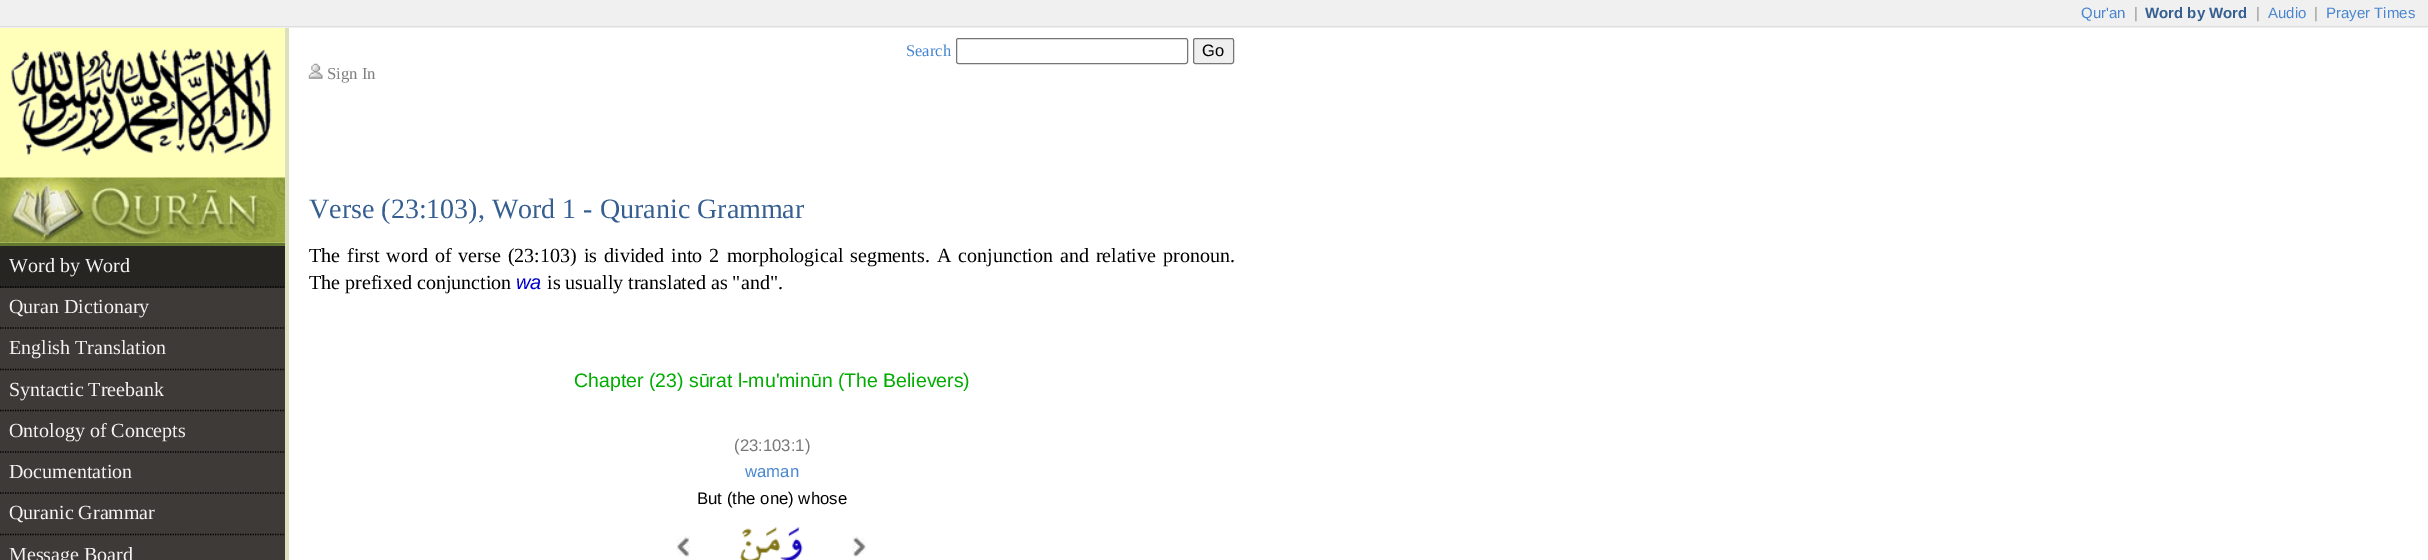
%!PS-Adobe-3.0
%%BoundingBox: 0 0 2428 560
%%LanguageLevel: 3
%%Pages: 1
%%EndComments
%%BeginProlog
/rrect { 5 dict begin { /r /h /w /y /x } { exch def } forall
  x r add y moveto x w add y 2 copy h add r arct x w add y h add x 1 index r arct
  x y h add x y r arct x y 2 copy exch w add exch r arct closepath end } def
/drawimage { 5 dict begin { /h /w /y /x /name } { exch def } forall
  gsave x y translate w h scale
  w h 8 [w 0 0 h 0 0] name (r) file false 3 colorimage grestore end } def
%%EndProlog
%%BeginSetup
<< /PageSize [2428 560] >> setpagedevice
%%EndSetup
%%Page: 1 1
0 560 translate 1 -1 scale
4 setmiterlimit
1 setgray
0 0 2428 560 rectfill
0.941 setgray
0 0 2428 28 rectfill
0.871 setgray
0 26 2428 1 rectfill
1 1 0.725 setrgbcolor
0 28 285 150 rectfill
(images/1.raw) 11 48 261 109 drawimage
0.863 0.878 0.745 setrgbcolor
285 28 4 532 rectfill
0.463 setgray
956.5 38.5 231 25 2 rrect stroke
0.937 setgray
1193.5 38.5 40 25 2 rrect gsave fill grestore
0.463 setgray
stroke
(images/2.raw) 308 63 15 16 drawimage
0.741 0.808 0.42 setrgbcolor
0 242 285 1 rectfill
(images/3.raw) 0 177 285 66 drawimage
0.243 0.227 0.216 setrgbcolor
0 288 285 272 rectfill
0.384 0.475 0.184 setrgbcolor
0 243 285 3 rectfill
0.153 0.145 0.133 setrgbcolor
0 246 285 42 rectfill
0 setgray
1.2 setlinewidth
[1.25 1.25] 0 setdash
newpath 0 287 moveto 285 287 lineto stroke
newpath 0 328 moveto 285 328 lineto stroke
newpath 0 369.5 moveto 285 369.5 lineto stroke
newpath 0 410.5 moveto 285 410.5 lineto stroke
newpath 0 452 moveto 285 452 lineto stroke
newpath 0 493 moveto 285 493 lineto stroke
newpath 0 534.5 moveto 285 534.5 lineto stroke
(images/4.raw) 676 536 14 21 drawimage
(images/5.raw) 740 527 63 33 drawimage
(images/6.raw) 852 536 14 21 drawimage
/LiberationSans-Regular [15 0 0 -15 0 0] selectfont
0.282 0.525 0.816 setrgbcolor
2081 18 moveto (Qur'an) show
0.6 setgray
2134 18 moveto (|) show
/LiberationSans-Bold [15 0 0 -15 0 0] selectfont
0.212 0.373 0.569 setrgbcolor
2145 18 moveto (Word by Word) show
/LiberationSans-Regular [15 0 0 -15 0 0] selectfont
0.6 setgray
2256 18 moveto (|) show
0.282 0.525 0.816 setrgbcolor
2268 18 moveto (Audio) show
0.6 setgray
2314 18 moveto (|) show
0.282 0.525 0.816 setrgbcolor
2326 18 moveto (Prayer Times) show
/LiberationSerif-Regular [16.5 0 0 -16.5 0 0] selectfont
906 56 moveto (Search) show
/LiberationSans-Regular [16.5 0 0 -16.5 0 0] selectfont
0 setgray
1202 56 moveto (Go) show
/LiberationSerif-Regular [16.75 0 0 -16.75 0 0] selectfont
0.502 setgray
327 79 moveto (Sign In) show
/LiberationSerif-Regular [28 0 0 -28 0 0] selectfont
0.212 0.373 0.569 setrgbcolor
309 218 moveto (Verse \(23:103\), Word 1 - Quranic Grammar) show
/LiberationSerif-Regular [20 0 0 -20 0 0] selectfont
0.949 setgray
9 272 moveto (Word by Word) show
9 313 moveto (Quran Dictionary) show
9 354 moveto (English Translation) show
9 396 moveto (Syntactic Treebank) show
9 437 moveto (Ontology of Concepts) show
9 478 moveto (Documentation) show
9 519 moveto (Quranic Grammar) show
9 561 moveto (Message Board) show
0 setgray
309 262 moveto 2.1 0 32 (The first word of verse \(23:103\) is divided into 2 morphological segments. A conjunction and relative pronoun.) widthshow
309 289 moveto (The prefixed conjunction) show
/LiberationSans-Italic [20 0 0 -20 0 0] selectfont
0 0 0.784 setrgbcolor
516 289 moveto (wa) show
/LiberationSerif-Regular [20 0 0 -20 0 0] selectfont
0 setgray
547 289 moveto (is usually translated as "and".) show
/LiberationSans-Regular [19.5 0 0 -19.5 0 0] selectfont
0 0.675 0 setrgbcolor
574 387 moveto (Chapter \(23\) sūrat l-mu'minūn \(The Believers\)) show
/LiberationSans-Regular [16.75 0 0 -16.75 0 0] selectfont
0.471 setgray
734 451 moveto (\(23:103:1\)) show
0.282 0.525 0.816 setrgbcolor
745 477 moveto (waman) show
0 setgray
697 504 moveto (But \(the one\) whose) show
showpage
%%EOF
